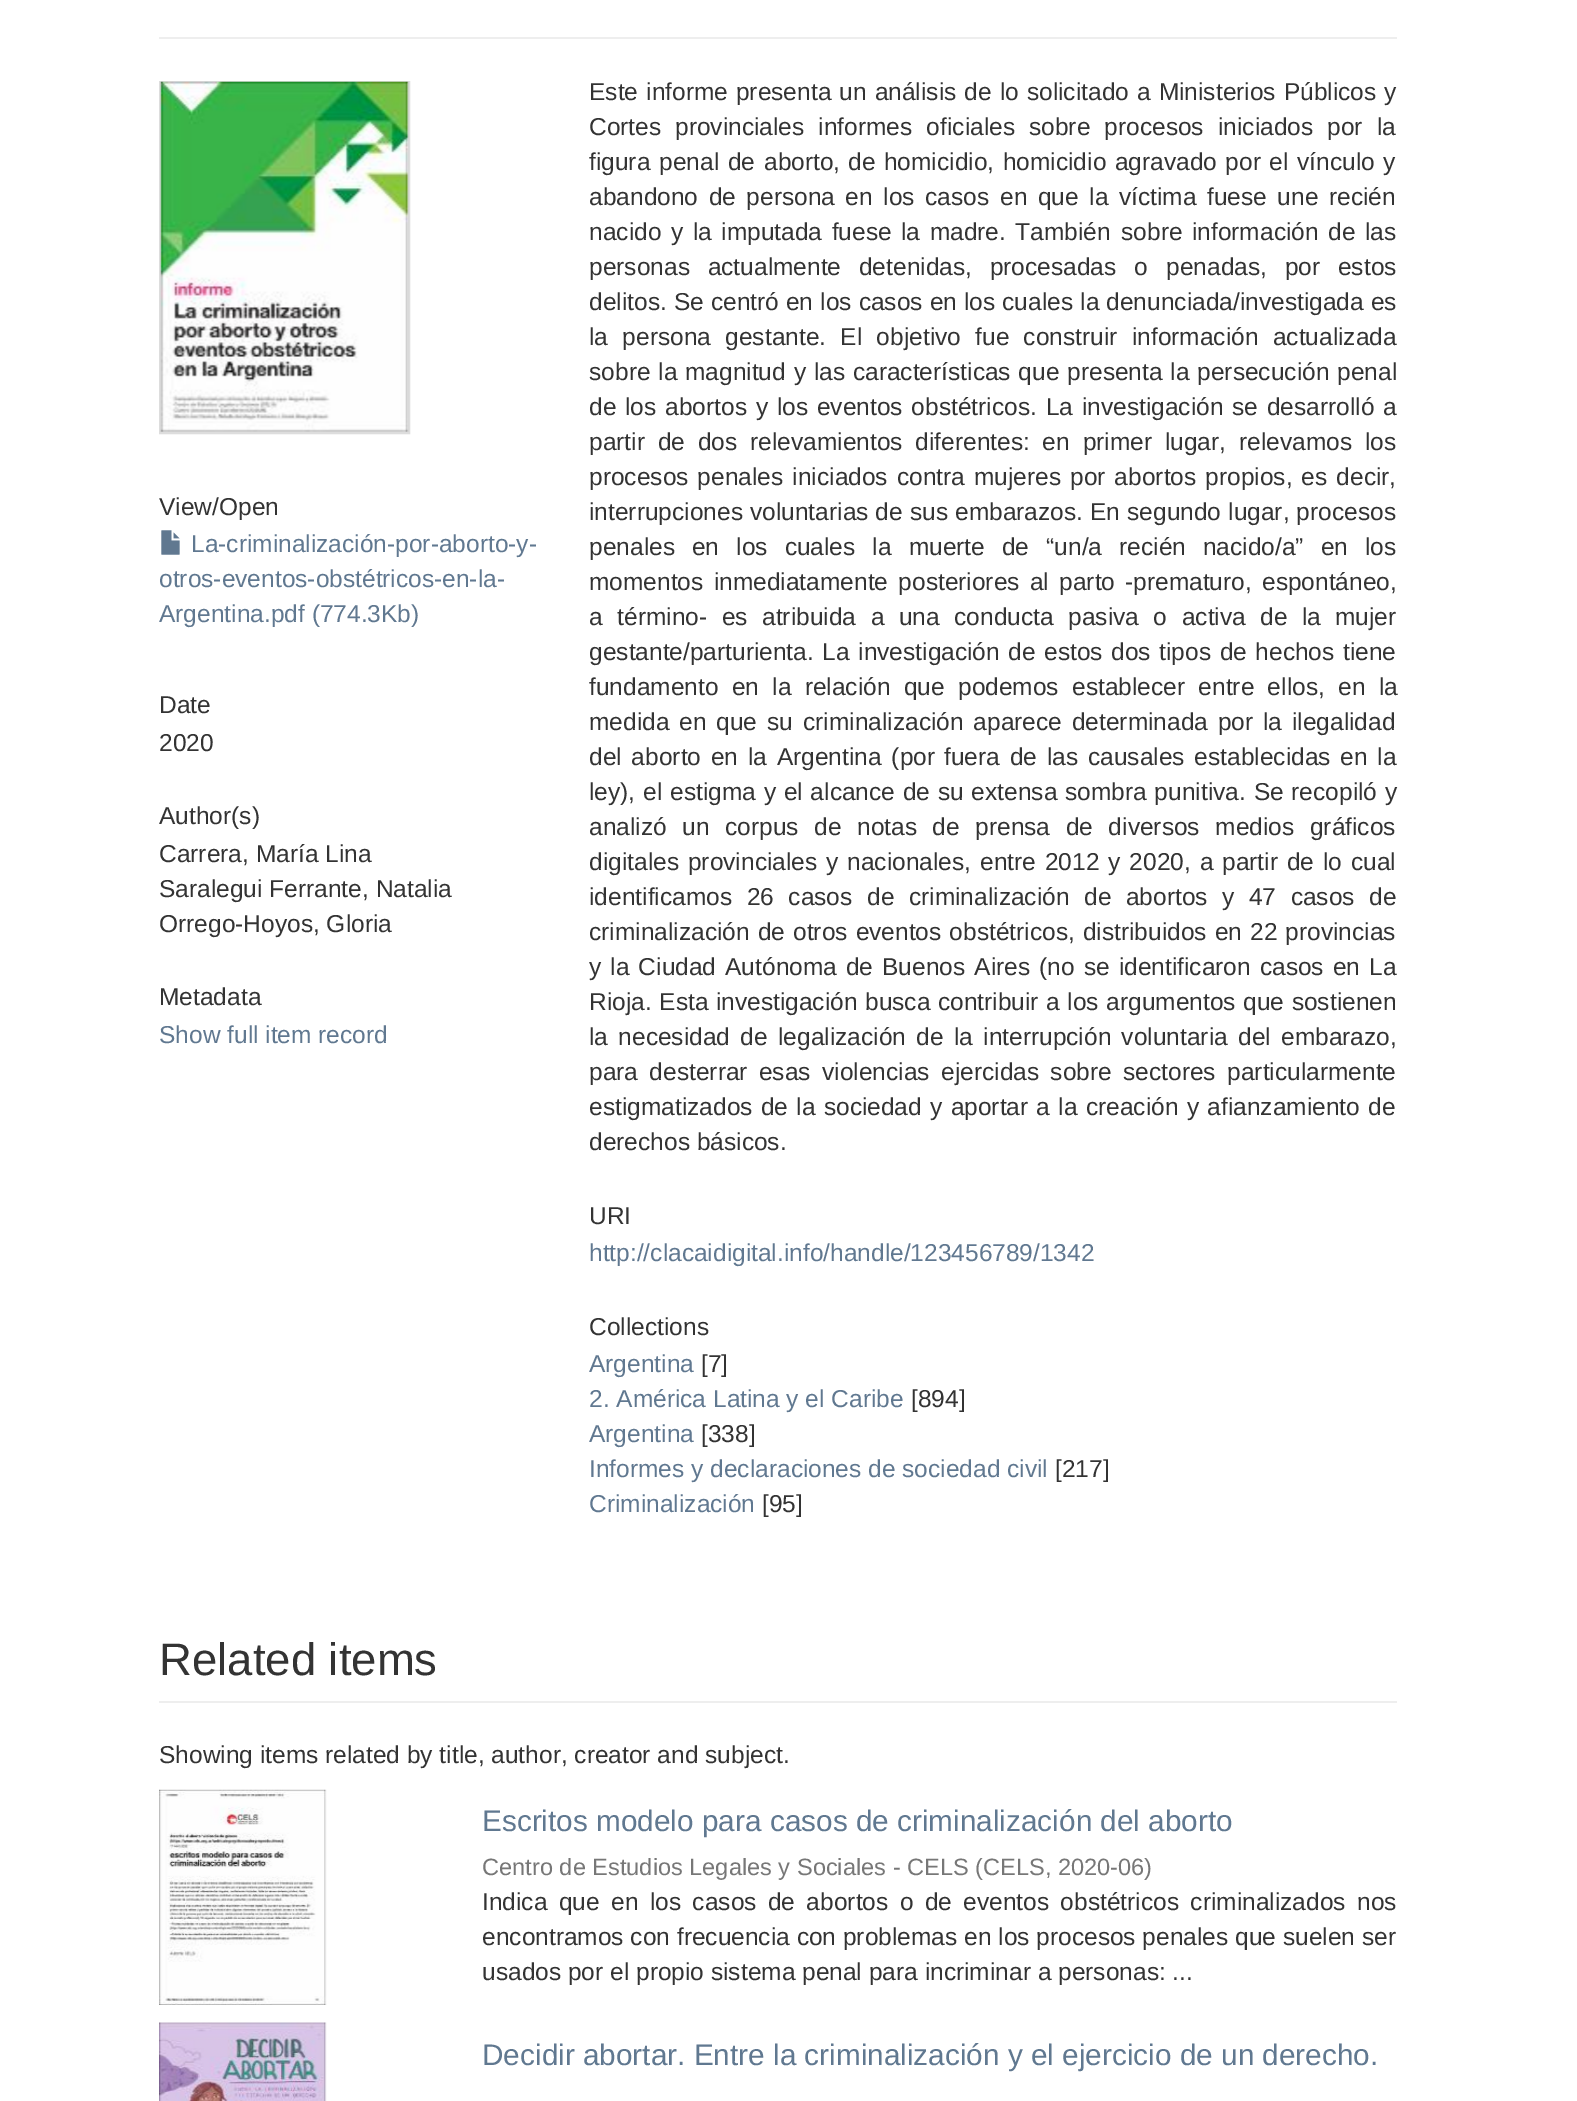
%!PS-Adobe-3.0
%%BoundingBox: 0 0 1577 2101
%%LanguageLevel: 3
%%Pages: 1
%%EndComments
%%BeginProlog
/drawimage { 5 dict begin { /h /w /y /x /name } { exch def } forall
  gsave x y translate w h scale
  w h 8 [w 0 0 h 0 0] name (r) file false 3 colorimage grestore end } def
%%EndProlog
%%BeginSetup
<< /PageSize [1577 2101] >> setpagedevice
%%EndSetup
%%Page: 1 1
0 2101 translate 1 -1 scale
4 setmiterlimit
1 setgray
0 0 1577 2101 rectfill
0.933 setgray
159 37 1238 2 rectfill
0.867 setgray
2 setlinewidth
160 82 249 351 rectstroke
(images/1.raw) 160 81 249 351 drawimage
(images/2.raw) 161 530 19 25 drawimage
0.933 setgray
159 1701 1238 2 rectfill
(images/3.raw) 159 1789 168 216 drawimage
(images/4.raw) 159 2022 168 79 drawimage
/LiberationSans-Regular [24.5 0 0 -24.5 0 0] selectfont
0.2 setgray
159 515 moveto (View/Open) show
0.376 0.471 0.565 setrgbcolor
191 552 moveto (La-criminalización-por-aborto-y-) show
159 587 moveto (otros-eventos-obstétricos-en-la-) show
159 622 moveto (Argentina.pdf \(774.3Kb\)) show
0.2 setgray
159 713 moveto (Date) show
159 751 moveto (2020) show
159 824 moveto (Author\(s\)) show
159 862 moveto (Carrera, María Lina) show
159 897 moveto (Saralegui Ferrante, Natalia) show
159 932 moveto (Orrego-Hoyos, Gloria) show
159 1005 moveto (Metadata) show
0.376 0.471 0.565 setrgbcolor
159 1043 moveto (Show full item record) show
0.2 setgray
589 100 moveto 1.25 0 32 (Este informe presenta un análisis de lo solicitado a Ministerios Públicos y) widthshow
589 135 moveto (Cortes) show
675 135 moveto 7.25 0 32 (provinciales informes oficiales sobre procesos iniciados por la) widthshow
589 170 moveto 2 0 32 (figura penal de aborto,) widthshow
848 170 moveto 1.75 0 32 (de homicidio, homicidio agravado por el vínculo y) widthshow
589 205 moveto 3.75 0 32 (abandono de persona en los casos) widthshow
1000 205 moveto 3.75 0 32 (en que la víctima fuese une recién) widthshow
589 240 moveto 2.75 0 32 (nacido y la imputada fuese la madre. También) widthshow
1121 240 moveto 2.75 0 32 (sobre información de las) widthshow
589 275 moveto 11 0 32 (personas actualmente detenidas, procesadas o) widthshow
1166 275 moveto 11 0 32 (penadas, por estos) widthshow
589 310 moveto 0.25 0 32 (delitos. Se centró en los casos en los cuales la denunciada/investigada es) widthshow
589 345 moveto 7.5 0 32 (la persona gestante. El objetivo fue construir información actualizada) widthshow
589 380 moveto 1 0 32 (sobre la magnitud y las características que presenta la persecución penal) widthshow
589 415 moveto 2 0 32 (de los abortos y los eventos obstétricos. La investigación se desarrolló a) widthshow
589 450 moveto 6 0 32 (partir de dos relevamientos diferentes: en primer lugar, relevamos los) widthshow
589 485 moveto 2.25 0 32 (procesos penales iniciados contra mujeres por abortos propios, es decir,) widthshow
589 520 moveto 0.25 0 32 (interrupciones voluntarias de sus embarazos. En segundo lugar, procesos) widthshow
589 555 moveto 10.25 0 32 (penales en los cuales la muerte de “un/a recién nacido/a” en los) widthshow
589 590 moveto 3.5 0 32 (momentos inmediatamente posteriores al parto) widthshow
1125 590 moveto 3.5 0 32 (-prematuro, espontáneo,) widthshow
589 625 moveto 7.75 0 32 (a término- es atribuida a una conducta pasiva o activa de la) widthshow
1335 625 moveto (mujer) show
589 660 moveto 1.75 0 32 (gestante/parturienta. La investigación de estos dos tipos de hechos tiene) widthshow
589 695 moveto 6.5 0 32 (fundamento en la relación que podemos establecer entre ellos, en la) widthshow
589 730 moveto 3 0 32 (medida en que su) widthshow
803 730 moveto 3 0 32 (criminalización aparece determinada por la ilegalidad) widthshow
589 765 moveto 3 0 32 (del aborto en la Argentina \(por) widthshow
944 765 moveto 3 0 32 (fuera de las causales establecidas en la) widthshow
589 800 moveto 1 0 32 (ley\), el estigma y el alcance de su extensa) widthshow
1065 800 moveto 1 0 32 (sombra punitiva. Se recopiló y) widthshow
589 835 moveto 8.75 0 32 (analizó un corpus de notas de prensa de diversos medios gráficos) widthshow
589 870 moveto 2.1 0 32 (digitales provinciales y nacionales, entre 2012 y 2020, a partir de lo cual) widthshow
589 905 moveto 7.75 0 32 (identificamos 26 casos de criminalización de abortos y 47 casos de) widthshow
589 940 moveto 1.25 0 32 (criminalización de otros eventos obstétricos, distribuidos en 22 provincias) widthshow
589 975 moveto 2.25 0 32 (y la Ciudad Autónoma de Buenos Aires \(no se identificaron casos en La) widthshow
589 1010 moveto 0.75 0 32 (Rioja. Esta investigación busca contribuir a los argumentos que sostienen) widthshow
589 1045 moveto 3.5 0 32 (la necesidad de legalización de la interrupción voluntaria del embarazo,) widthshow
589 1080 moveto 4.6 0 32 (para desterrar esas violencias ejercidas sobre sectores particularmente) widthshow
589 1115 moveto 1.5 0 32 (estigmatizados de la sociedad y aportar a la creación y afianzamiento de) widthshow
589 1150 moveto (derechos básicos.) show
589 1224 moveto (URI) show
0.376 0.471 0.565 setrgbcolor
589 1261 moveto (http://clacaidigital.info/handle/123456789/1342) show
0.2 setgray
589 1335 moveto (Collections) show
0.376 0.471 0.565 setrgbcolor
589 1372 moveto (Argentina) show
0.2 setgray
701 1372 moveto ([7]) show
0.376 0.471 0.565 setrgbcolor
589 1407 moveto (2. América Latina y el Caribe) show
0.2 setgray
911 1407 moveto ([894]) show
0.376 0.471 0.565 setrgbcolor
589 1442 moveto (Argentina) show
0.2 setgray
701 1442 moveto ([338]) show
0.376 0.471 0.565 setrgbcolor
589 1477 moveto (Informes y declaraciones de sociedad civil) show
0.2 setgray
1055 1477 moveto ([217]) show
0.376 0.471 0.565 setrgbcolor
589 1512 moveto (Criminalización) show
0.2 setgray
762 1512 moveto ([95]) show
/LiberationSans-Regular [45.5 0 0 -45.5 0 0] selectfont
159 1675 moveto (Related items) show
/LiberationSans-Regular [24.5 0 0 -24.5 0 0] selectfont
159 1763 moveto (Showing items related by title, author, creator and subject.) show
/LiberationSans-Regular [29.75 0 0 -29.75 0 0] selectfont
0.376 0.471 0.565 setrgbcolor
482 1831 moveto (Escritos modelo para casos de criminalización del aborto) show
/LiberationSans-Regular [23.6 0 0 -23.6 0 0] selectfont
0.467 setgray
482 1875 moveto (Centro de Estudios Legales y Sociales - CELS \(CELS, 2020-06\)) show
/LiberationSans-Regular [24.5 0 0 -24.5 0 0] selectfont
0.2 setgray
482 1910 moveto 4.6 0 32 (Indica que en los casos de abortos o de eventos obstétricos criminalizados nos) widthshow
482 1945 moveto (encontramos con frecuencia con problemas en los procesos penales que suelen ser) show
482 1980 moveto (usados por el propio sistema penal para incriminar a personas: ...) show
/LiberationSans-Regular [29.75 0 0 -29.75 0 0] selectfont
0.376 0.471 0.565 setrgbcolor
482 2065 moveto (Decidir abortar. Entre la criminalización y el ejercicio de un derecho.) show
showpage
%%EOF
